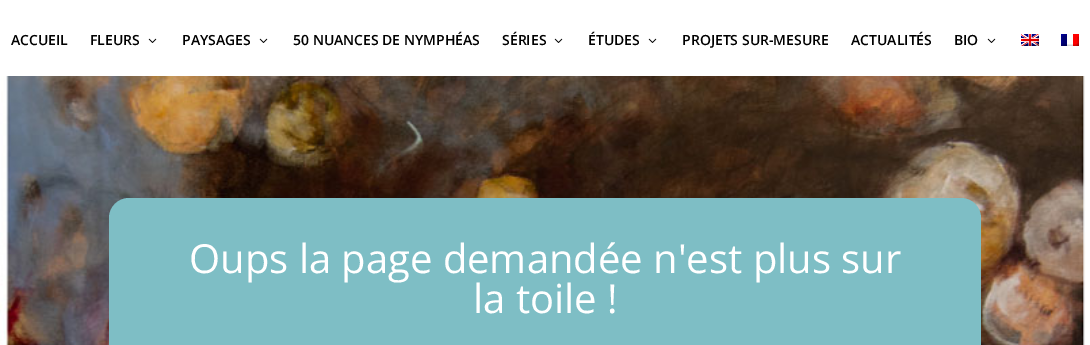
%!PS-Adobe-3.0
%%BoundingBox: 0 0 1090 345
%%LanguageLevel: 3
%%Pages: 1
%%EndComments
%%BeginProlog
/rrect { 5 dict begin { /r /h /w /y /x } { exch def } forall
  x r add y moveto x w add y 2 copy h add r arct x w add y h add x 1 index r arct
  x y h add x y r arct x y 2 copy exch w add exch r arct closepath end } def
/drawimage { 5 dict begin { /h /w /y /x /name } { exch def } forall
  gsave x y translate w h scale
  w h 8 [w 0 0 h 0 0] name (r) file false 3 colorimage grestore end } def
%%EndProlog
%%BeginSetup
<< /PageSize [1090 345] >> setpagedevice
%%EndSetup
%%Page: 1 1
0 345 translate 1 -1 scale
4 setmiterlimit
1 setgray
0 0 1090 345 rectfill
(images/1.raw) 148 38 9 5 drawimage
(images/1.raw) 259 38 9 5 drawimage
(images/1.raw) 554 38 9 5 drawimage
(images/1.raw) 648 38 9 5 drawimage
(images/1.raw) 987 38 9 5 drawimage
(images/2.raw) 1021 34 18 12 drawimage
(images/3.raw) 1061 34 18 12 drawimage
(images/4.raw) 0 76 1086 269 drawimage
0.494 0.745 0.773 setrgbcolor
109 198 872 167 20 rrect fill
/OpenSans-SemiBold [14 0 0 -14 0 0] selectfont
0 setgray
11 45 moveto (ACCUEIL) show
90 45 moveto (FLEURS) show
182 45 moveto (PAYSAGES) show
293 45 moveto (50 NUANCES DE NYMPHÉAS) show
502 45 moveto (SÉRIES) show
588 45 moveto (ÉTUDES) show
682 45 moveto (PROJETS SUR-MESURE) show
851 45 moveto (ACTUALITÉS) show
954 45 moveto (BIO) show
/OpenSans-Regular [40 0 0 -40 0 0] selectfont
1 setgray
189 273 moveto (Oups la page demandée n'est plus sur) show
473 313 moveto (la toile !) show
showpage
%%EOF
